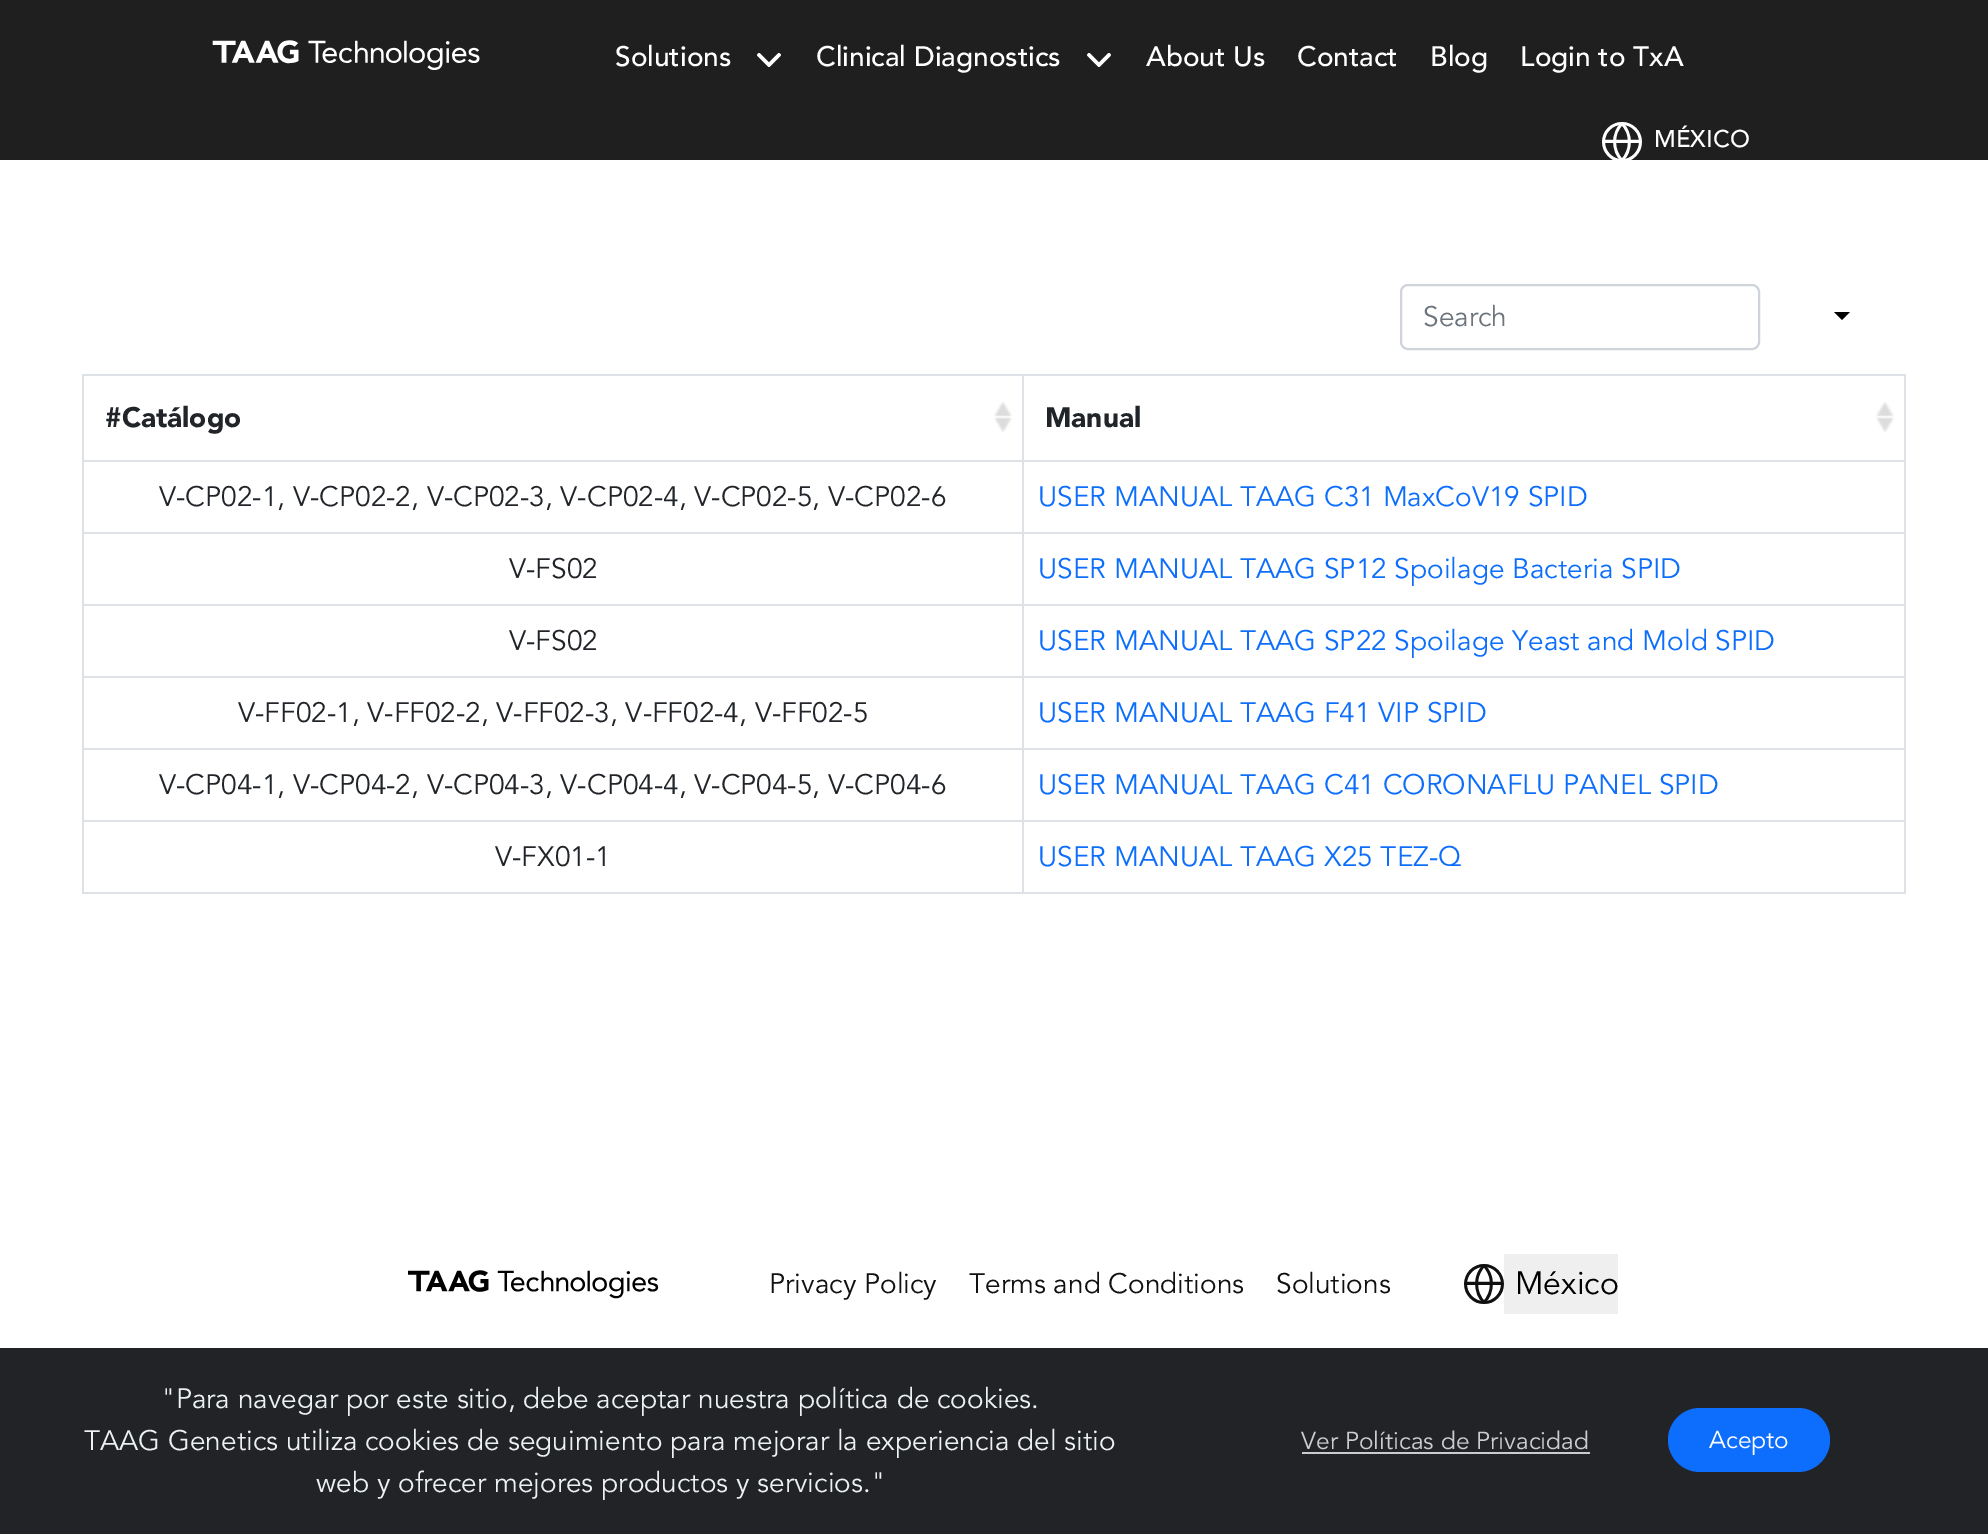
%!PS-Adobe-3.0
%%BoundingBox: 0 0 1988 1534
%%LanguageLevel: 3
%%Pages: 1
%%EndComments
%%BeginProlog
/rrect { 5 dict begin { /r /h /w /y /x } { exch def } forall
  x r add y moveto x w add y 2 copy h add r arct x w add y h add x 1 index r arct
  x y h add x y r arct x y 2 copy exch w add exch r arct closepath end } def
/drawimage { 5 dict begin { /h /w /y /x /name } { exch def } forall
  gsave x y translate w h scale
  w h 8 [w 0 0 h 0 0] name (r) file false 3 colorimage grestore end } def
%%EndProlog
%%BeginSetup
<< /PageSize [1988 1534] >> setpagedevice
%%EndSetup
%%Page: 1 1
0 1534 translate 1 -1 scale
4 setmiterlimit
1 setgray
0 0 1988 1534 rectfill
0.122 setgray
0 0 1988 160 rectfill
(images/1.raw) 212 40 268 30 drawimage
(images/2.raw) 757 53 24 14 drawimage
(images/2.raw) 1087 53 24 14 drawimage
(images/3.raw) 1602 122 40 38 drawimage
0.808 0.831 0.855 setrgbcolor
2 setlinewidth
1401 285 358 64 7 rrect stroke
0 setgray
newpath 1834 312 moveto 1850 312 lineto 1842 320 lineto closepath fill
0.871 0.886 0.902 setrgbcolor
82 374 1824 2 rectfill
(images/4.raw) 994 401 18 32 drawimage
(images/4.raw) 1876 401 18 32 drawimage
82 460 1824 2 rectfill
82 532 1824 2 rectfill
82 604 1824 2 rectfill
82 676 1824 2 rectfill
82 748 1824 2 rectfill
82 820 1824 2 rectfill
82 892 1824 2 rectfill
82 374 2 520 rectfill
1904 374 2 520 rectfill
1022 374 2 520 rectfill
(images/5.raw) 408 1270 251 29 drawimage
(images/6.raw) 1464 1264 40 40 drawimage
0.937 setgray
1504 1254 114 60 rectfill
0.129 0.137 0.153 setrgbcolor
0 1348 1988 186 rectfill
0.8 setgray
1302 1452 288 2 rectfill
0.051 0.431 0.992 setrgbcolor
1668 1408 162 64 32 rrect fill
/Avenir-Medium [28 0 0 -28 0 0] selectfont
1 setgray
615 66 moveto (Solutions) show
816 66 moveto (Clinical Diagnostics) show
1146 66 moveto (About Us) show
1297 66 moveto (Contact) show
1430 66 moveto (Blog) show
1520 66 moveto (Login to TxA) show
/Avenir-Medium [24 0 0 -24 0 0] selectfont
1654 147 moveto (MÉXICO) show
/Avenir-Regular [28 0 0 -28 0 0] selectfont
0.424 0.459 0.49 setrgbcolor
1423 326 moveto (Search) show
/Avenir-Black [28 0 0 -28 0 0] selectfont
0.129 0.145 0.161 setrgbcolor
105 427 moveto (#Catálogo) show
1045 427 moveto (Manual) show
/Avenir-Regular [28 0 0 -28 0 0] selectfont
159 506 moveto (V-CP02-1, V-CP02-2, V-CP02-3, V-CP02-4, V-CP02-5, V-CP02-6) show
0.051 0.431 0.992 setrgbcolor
1038 506 moveto (USER MANUAL TAAG C31 MaxCoV19 SPID) show
0.129 0.145 0.161 setrgbcolor
509 578 moveto (V-FS02) show
0.051 0.431 0.992 setrgbcolor
1038 578 moveto (USER MANUAL TAAG SP12 Spoilage Bacteria SPID) show
0.129 0.145 0.161 setrgbcolor
509 650 moveto (V-FS02) show
0.051 0.431 0.992 setrgbcolor
1038 650 moveto (USER MANUAL TAAG SP22 Spoilage Yeast and Mold SPID) show
0.129 0.145 0.161 setrgbcolor
238 722 moveto (V-FF02-1, V-FF02-2, V-FF02-3, V-FF02-4, V-FF02-5) show
0.051 0.431 0.992 setrgbcolor
1038 722 moveto (USER MANUAL TAAG F41 VIP SPID) show
0.129 0.145 0.161 setrgbcolor
159 794 moveto (V-CP04-1, V-CP04-2, V-CP04-3, V-CP04-4, V-CP04-5, V-CP04-6) show
0.051 0.431 0.992 setrgbcolor
1038 794 moveto (USER MANUAL TAAG C41 CORONAFLU PANEL SPID) show
0.129 0.145 0.161 setrgbcolor
495 866 moveto (V-FX01-1) show
0.051 0.431 0.992 setrgbcolor
1038 866 moveto (USER MANUAL TAAG X25 TEZ-Q) show
0.067 setgray
769 1293 moveto (Privacy Policy) show
969 1293 moveto (Terms and Conditions) show
1276 1293 moveto (Solutions) show
/Avenir-Regular [32 0 0 -32 0 0] selectfont
0 setgray
1515 1294 moveto (México) show
/Avenir-Regular [28 0 0 -28 0 0] selectfont
0.925 0.941 0.945 setrgbcolor
161 1408 moveto ("Para navegar por este sitio, debe aceptar nuestra política de cookies.) show
84 1450 moveto (TAAG Genetics utiliza cookies de seguimiento para mejorar la experiencia del sitio) show
316 1492 moveto (web y ofrecer mejores productos y servicios.") show
/Avenir-Regular [24.5 0 0 -24.5 0 0] selectfont
0.8 setgray
1301 1449 moveto (Ver Políticas de Privacidad) show
1 setgray
1709 1448 moveto (Acepto) show
showpage
%%EOF
